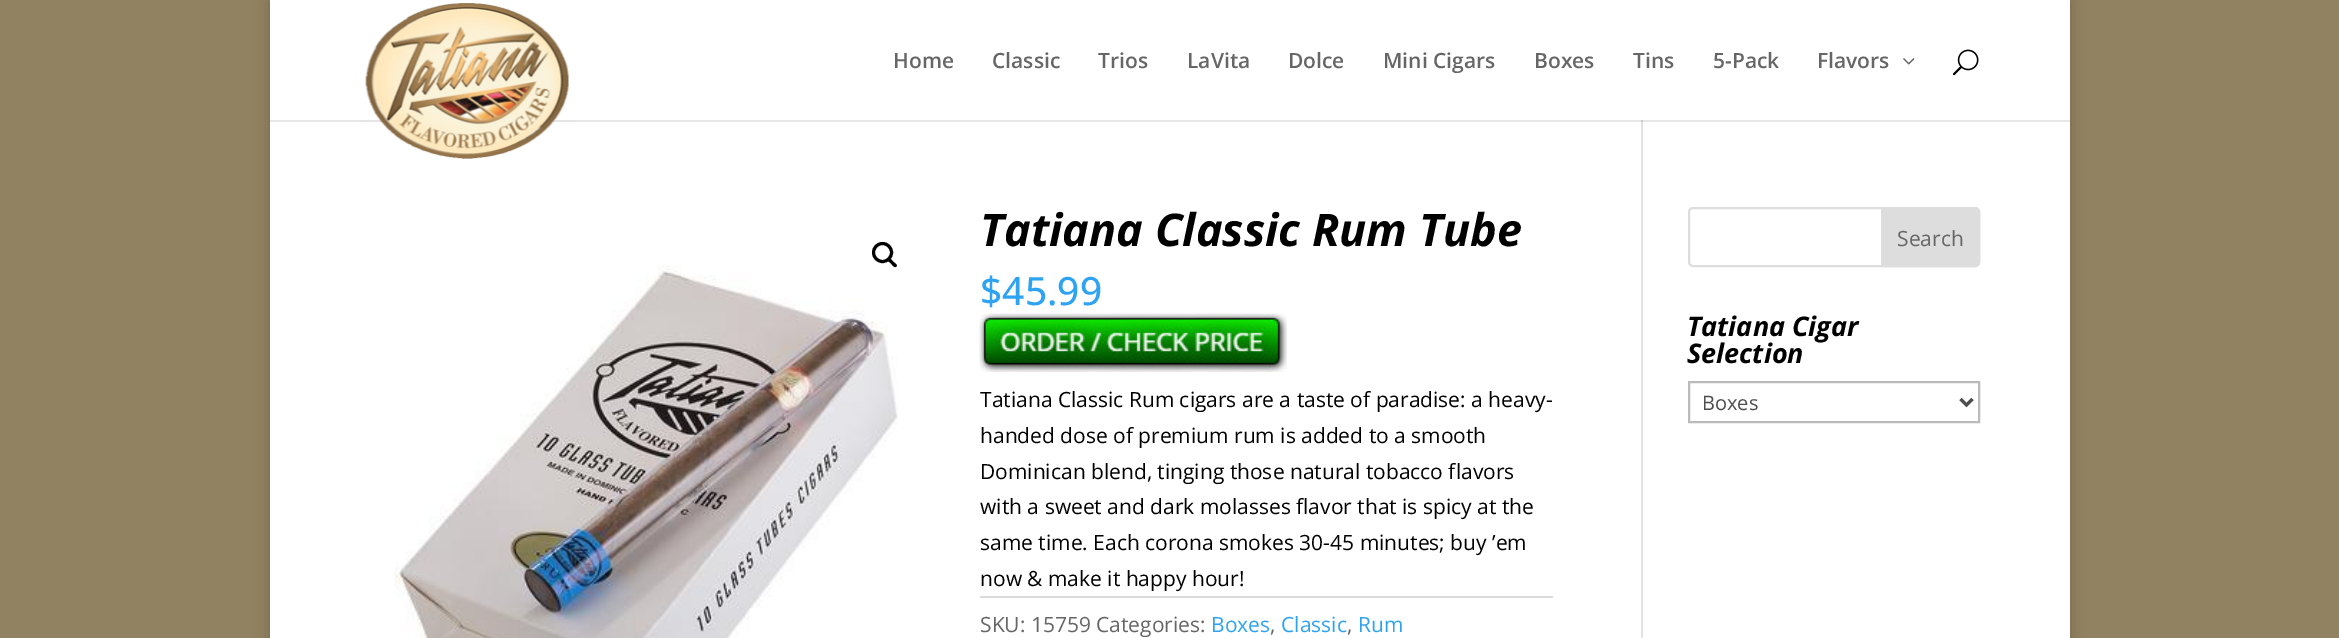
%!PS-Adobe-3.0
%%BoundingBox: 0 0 2339 638
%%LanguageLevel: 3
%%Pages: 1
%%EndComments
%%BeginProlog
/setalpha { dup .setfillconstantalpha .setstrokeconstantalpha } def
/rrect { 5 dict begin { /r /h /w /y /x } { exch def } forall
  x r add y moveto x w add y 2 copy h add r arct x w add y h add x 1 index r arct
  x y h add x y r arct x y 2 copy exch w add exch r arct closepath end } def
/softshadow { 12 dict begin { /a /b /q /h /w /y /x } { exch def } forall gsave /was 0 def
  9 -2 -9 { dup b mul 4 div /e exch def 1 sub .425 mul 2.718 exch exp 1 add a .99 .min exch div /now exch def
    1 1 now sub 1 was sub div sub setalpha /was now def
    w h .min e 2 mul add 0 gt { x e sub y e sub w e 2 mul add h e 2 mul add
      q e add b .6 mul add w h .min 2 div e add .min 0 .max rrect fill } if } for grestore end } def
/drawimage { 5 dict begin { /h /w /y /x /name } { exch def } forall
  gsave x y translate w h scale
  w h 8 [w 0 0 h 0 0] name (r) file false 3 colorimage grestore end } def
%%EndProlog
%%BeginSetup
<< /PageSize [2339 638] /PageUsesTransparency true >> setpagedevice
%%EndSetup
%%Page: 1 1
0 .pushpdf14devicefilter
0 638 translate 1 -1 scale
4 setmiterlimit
0.569 0.51 0.38 setrgbcolor
0 0 2339 638 rectfill
0 setgray
270 0 1800 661 0 7.5 0.2 softshadow
1 setgray
270 0 1800 120 rectfill
270 122 1800 516 rectfill
0.902 setgray
270 120 1800 2 rectfill
(images/1.raw) 365 3 204 156 drawimage
(images/2.raw) 1903 58 12 7 drawimage
(images/3.raw) 1952 49 27 27 drawimage
0.886 setgray
1641 120 2 518 rectfill
0.796 setgray
1641 120 2 2 rectfill
0 setgray
3 setlinewidth
newpath 882.5 252.5 9 0 360 arc closepath stroke
(images/4.raw) 394 265 504 373 drawimage
newpath 888 258.5 moveto 889.5 256.5 892 260.5 893 261.5 curveto 894 262.5 898 265 896.5 266.5 curveto 894.5 268.5 892 264.5 891 263.5 curveto 890 262.5 886 260 888 258.5 curveto closepath fill
(images/5.raw) 979 313 308 59 drawimage
0.855 setgray
980 596 573 2 rectfill
0.867 setgray
2 setlinewidth
1689 208 290 58 4 rrect stroke
newpath 1882 208 moveto 1975 208 lineto 1977 208 1979 210 1979 212 curveto 1979 262 lineto 1979 264 1977 266 1975 266 curveto 1882 266 lineto closepath gsave fill grestore
stroke
0.733 setgray
1689 382 290 40 rectstroke
0.306 setgray
3 setlinewidth
newpath 1960.5 399 moveto 1966.5 405 lineto 1972.5 399 lineto stroke
/OpenSans-SemiBold [21 0 0 -21 0 0] selectfont
0.4 setgray
893 68 moveto (Home) show
992 68 moveto (Classic) show
1098 68 moveto (Trios) show
1187 68 moveto (LaVita) show
1288 68 moveto (Dolce) show
1383 68 moveto (Mini Cigars) show
1534 68 moveto (Boxes) show
1633 68 moveto (Tins) show
1713 68 moveto (5-Pack) show
1817 68 moveto (Flavors) show
/OpenSans-BoldItalic [45 0 0 -45 0 0] selectfont
0 setgray
980 246 moveto (Tatiana Classic Rum Tube) show
/OpenSans-Medium [39 0 0 -39 0 0] selectfont
0.18 0.639 0.949 setrgbcolor
980 305 moveto ($45.99) show
/OpenSans-Regular [21 0 0 -21 0 0] selectfont
0 setgray
980 407 moveto (Tatiana Classic Rum cigars are a taste of paradise: a heavy-) show
980 443 moveto (handed dose of premium rum is added to a smooth) show
980 479 moveto (Dominican blend, tinging those natural tobacco flavors) show
980 514 moveto (with a sweet and dark molasses flavor that is spicy at the) show
980 550 moveto (same time. Each corona smokes 30-45 minutes; buy ’em) show
980 586 moveto (now & make it happy hour!) show
0.4 setgray
980 632 moveto (SKU: 15759 Categories:) show
0.18 0.639 0.949 setrgbcolor
1211 632 moveto (Boxes) show
0.4 setgray
1270 632 moveto (,) show
0.18 0.639 0.949 setrgbcolor
1281 632 moveto (Classic) show
0.4 setgray
1347 632 moveto (,) show
0.18 0.639 0.949 setrgbcolor
1358 632 moveto (Rum) show
0.4 setgray
1897 246 moveto (Search) show
/OpenSans-BoldItalic [27 0 0 -27 0 0] selectfont
0 setgray
1687 336 moveto (Tatiana Cigar) show
1687 363 moveto (Selection) show
/OpenSans-Regular [20 0 0 -20 0 0] selectfont
0.306 setgray
1702 410 moveto (Boxes) show
.poppdf14devicefilter showpage
%%EOF
